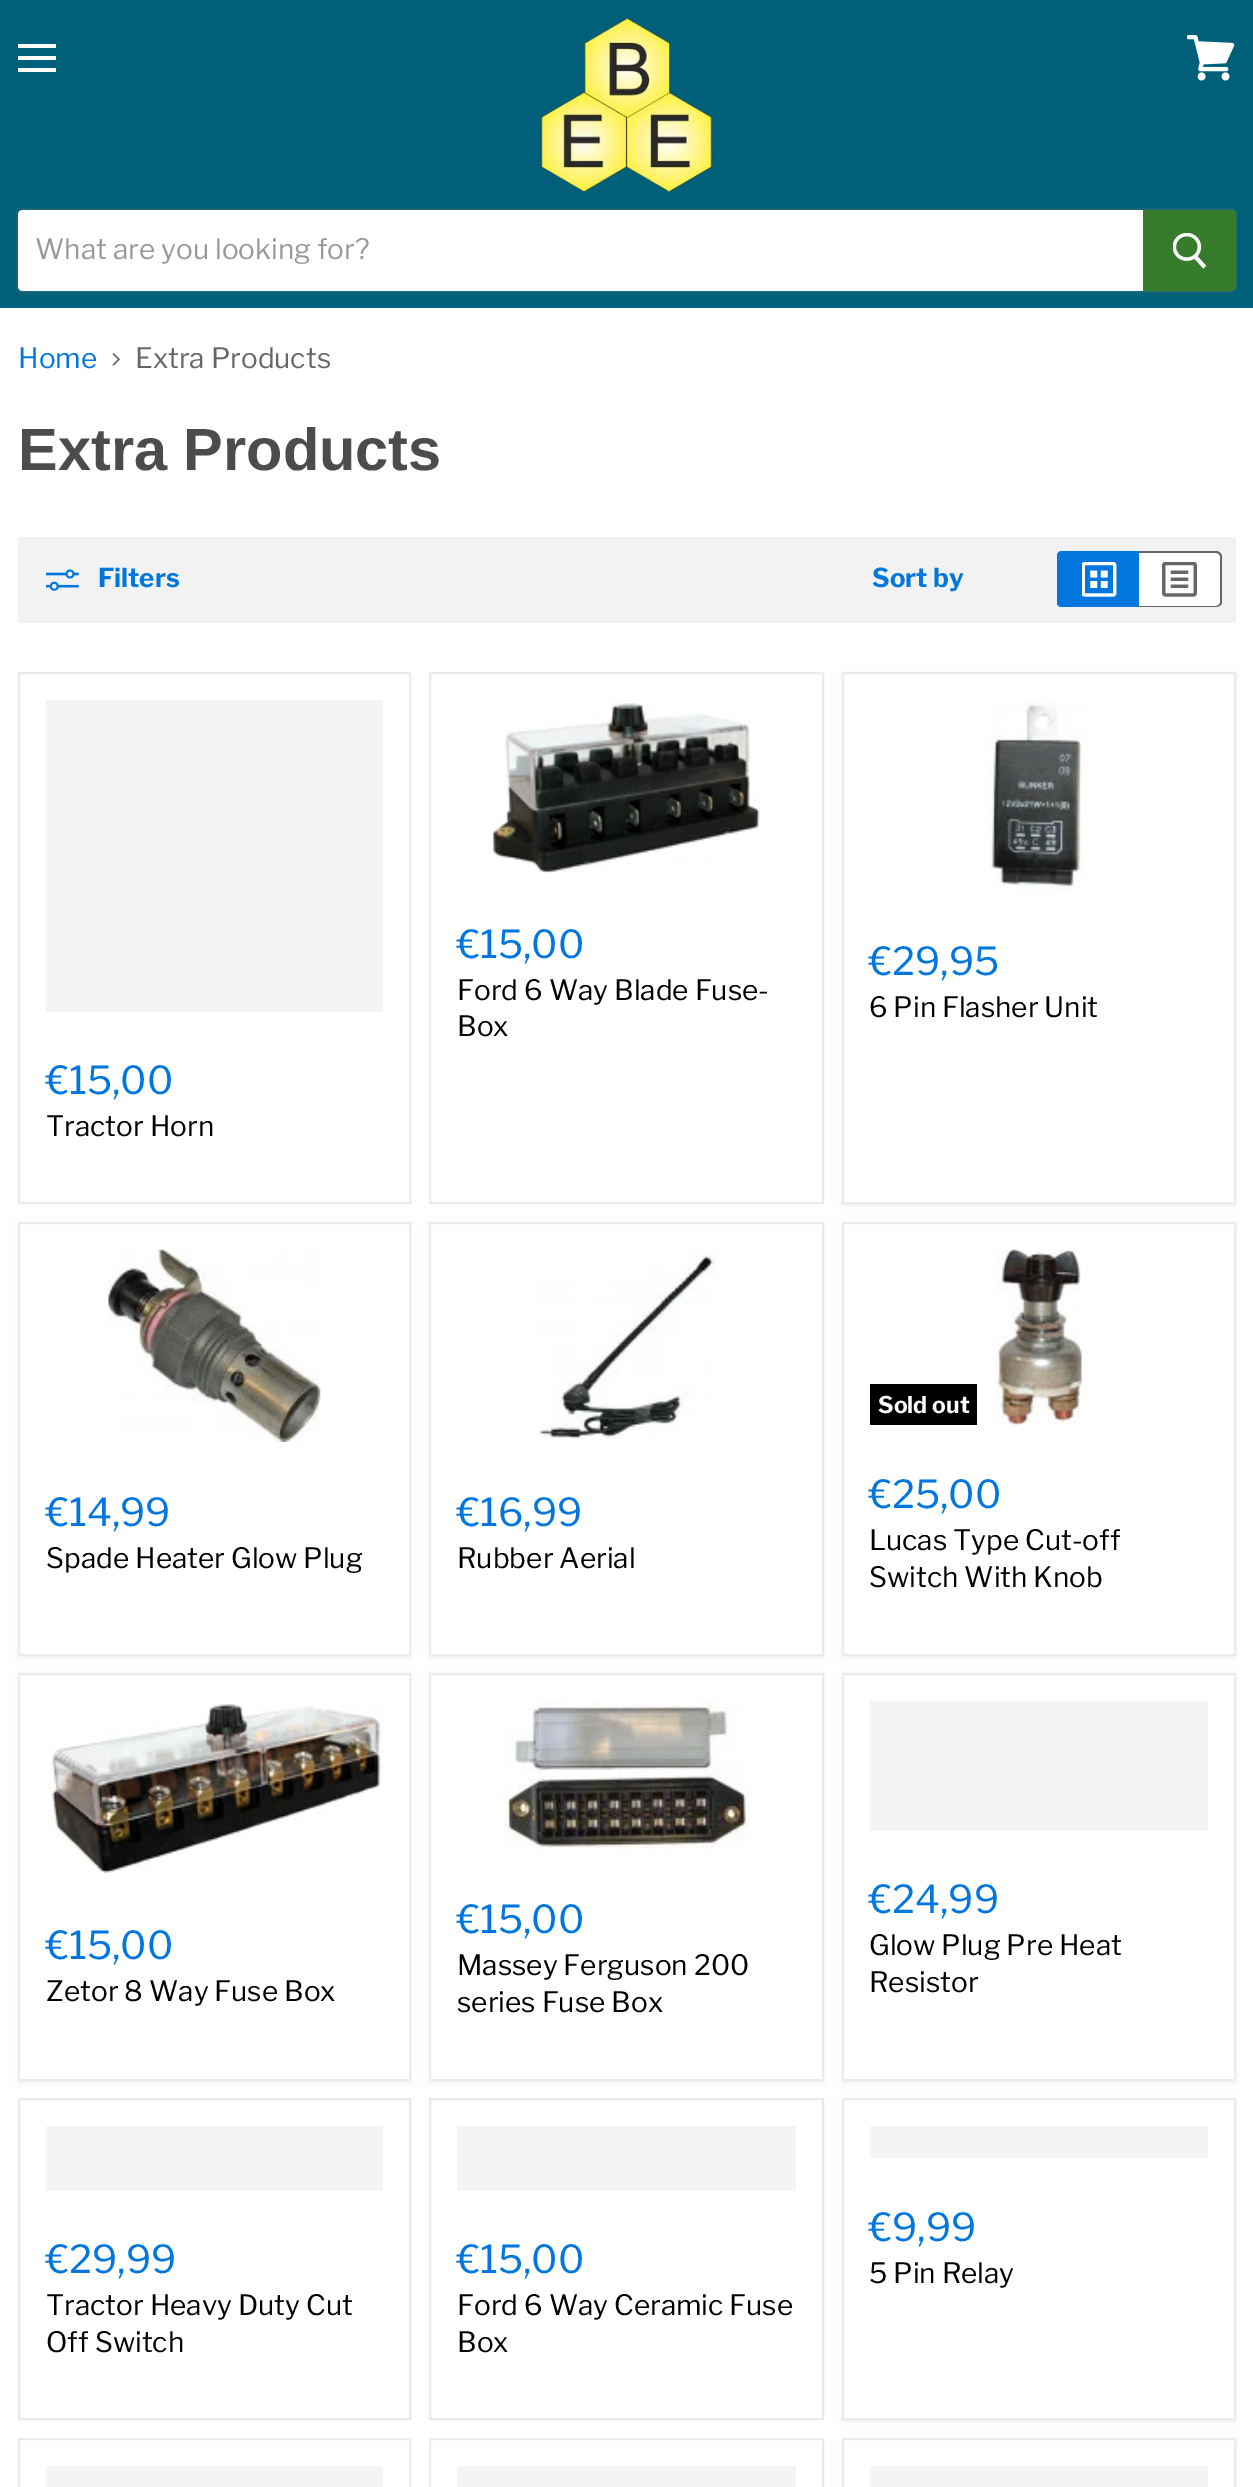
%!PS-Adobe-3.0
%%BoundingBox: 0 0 1253 2487
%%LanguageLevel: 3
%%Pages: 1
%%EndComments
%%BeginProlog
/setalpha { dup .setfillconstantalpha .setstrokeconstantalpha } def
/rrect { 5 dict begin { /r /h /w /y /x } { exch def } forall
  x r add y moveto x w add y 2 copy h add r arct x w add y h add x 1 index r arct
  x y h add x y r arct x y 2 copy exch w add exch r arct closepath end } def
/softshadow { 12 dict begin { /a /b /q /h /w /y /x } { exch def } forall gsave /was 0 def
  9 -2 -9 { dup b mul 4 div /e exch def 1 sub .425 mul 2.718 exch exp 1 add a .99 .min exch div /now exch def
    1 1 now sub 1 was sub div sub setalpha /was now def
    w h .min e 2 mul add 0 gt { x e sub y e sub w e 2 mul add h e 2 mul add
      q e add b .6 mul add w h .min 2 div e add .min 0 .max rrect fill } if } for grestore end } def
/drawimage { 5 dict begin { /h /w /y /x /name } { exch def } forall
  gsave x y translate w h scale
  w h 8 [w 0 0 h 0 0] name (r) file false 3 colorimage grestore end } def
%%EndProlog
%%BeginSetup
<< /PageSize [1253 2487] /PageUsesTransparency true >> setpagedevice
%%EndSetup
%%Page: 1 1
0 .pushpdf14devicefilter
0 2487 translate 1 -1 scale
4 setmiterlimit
1 setgray
0 0 1253 2487 rectfill
0 0.376 0.475 setrgbcolor
0 0 1253 308 rectfill
1 setgray
18 44 38 4 rectfill
18 56 38 4 rectfill
18 68 38 4 rectfill
(images/1.raw) 1187 35 48 46 drawimage
(images/2.raw) 540 17 173 176 drawimage
0.498 setgray
16 212 1221 84 7 2.5 0.11 softshadow
0.098 0.4 0.478 setrgbcolor
2 setlinewidth
newpath 21 209 moveto 1230 209 lineto 1233.5 209 1236 211.5 1236 215 curveto 1236 285 lineto 1236 288.5 1233.5 291 1230 291 curveto 21 291 lineto 19 291 17 289 17 287 curveto 17 213 lineto 17 211 19 209 21 209 curveto closepath stroke
1 setgray
newpath 23 210 moveto 1143 210 lineto 1143 291 lineto 23 291 lineto 20 291 18 289 18 286 curveto 18 215 lineto 18 212 20 210 23 210 curveto closepath fill
0.212 0.486 0.169 setrgbcolor
newpath 1144 211 moveto 1231 211 lineto 1233 211 1235 213 1235 215 curveto 1235 286 lineto 1235 288 1233 290 1231 290 curveto 1144 290 lineto closepath gsave fill grestore
stroke
(images/3.raw) 1173 233 34 36 drawimage
(images/4.raw) 112 353 8 13 drawimage
0.949 setgray
18 537 1218 86 rectfill
(images/5.raw) 46 569 33 22 drawimage
0 0.463 0.871 setrgbcolor
newpath 1062 551 moveto 1139 551 lineto 1139 607 lineto 1062 607 lineto 1059 607 1057 605 1057 602 curveto 1057 556 lineto 1057 553 1059 551 1062 551 curveto closepath fill
newpath 1062 551 moveto 1139 551 lineto 1139 607 lineto 1062 607 lineto 1059 607 1057 605 1057 602 curveto 1057 556 lineto 1057 554 1059 551 1062 551 curveto closepath 1062 553 moveto 1139 553 lineto 1139 606 lineto 1062 606 lineto 1060 606 1059 604 1059 602 curveto 1059 556 lineto 1059 555 1060 553 1062 553 curveto closepath eofill
(images/6.raw) 1082 562 35 35 drawimage
1 setgray
newpath 1139 551 moveto 1217 551 lineto 1220 551 1222 553 1222 556 curveto 1222 602 lineto 1222 605 1220 607 1217 607 curveto 1139 607 lineto closepath fill
0.4 setgray
newpath 1139 551 moveto 1216 551 lineto 1219 551 1222 554 1222 556 curveto 1222 602 lineto 1222 605 1219 607 1216 607 curveto 1139 607 lineto closepath 1139 553 moveto 1216 553 lineto 1218 553 1220 555 1220 556 curveto 1220 602 lineto 1220 604 1218 606 1216 606 curveto 1139 606 lineto closepath eofill
(images/7.raw) 1162 562 35 35 drawimage
0.922 setgray
430 673 393 530 rectstroke
(images/8.raw) 490 700 270 174 drawimage
0.498 setgray
842 674 394 532 0 3.5 0.11 softshadow
1 setgray
newpath 843 673 moveto 1235 673 lineto 1235 1203 lineto 843 1203 lineto closepath gsave fill grestore
0.922 setgray
stroke
(images/9.raw) 989 700 98 192 drawimage
19 673 391 530 rectstroke
0.957 setgray
46 700 337 312 rectfill
0.498 setgray
18 1223 393 434 0 3.5 0.11 softshadow
1 setgray
newpath 19 1223 moveto 410 1223 lineto 410 1655 lineto 19 1655 lineto closepath gsave fill grestore
0.922 setgray
stroke
(images/10.raw) 108 1249 213 193 drawimage
0.498 setgray
429 1223 395 434 0 3.5 0.11 softshadow
1 setgray
newpath 430 1223 moveto 823 1223 lineto 823 1655 lineto 430 1655 lineto closepath gsave fill grestore
0.922 setgray
stroke
(images/11.raw) 537 1250 179 190 drawimage
0.498 setgray
842 1223 394 434 0 3.5 0.11 softshadow
1 setgray
newpath 843 1223 moveto 1235 1223 lineto 1235 1655 lineto 843 1655 lineto closepath gsave fill grestore
0.922 setgray
stroke
0 setgray
870 1384 107 41 rectfill
(images/12.raw) 996 1249 86 176 drawimage
0.498 setgray
18 1675 393 408 0 3.5 0.11 softshadow
1 setgray
newpath 19 1674 moveto 410 1674 lineto 410 2080 lineto 19 2080 lineto closepath gsave fill grestore
0.922 setgray
stroke
(images/13.raw) 49 1703 333 170 drawimage
0.498 setgray
429 1675 395 408 0 3.5 0.11 softshadow
1 setgray
newpath 430 1674 moveto 823 1674 lineto 823 2080 lineto 430 2080 lineto closepath gsave fill grestore
0.922 setgray
stroke
(images/14.raw) 504 1701 245 149 drawimage
0.498 setgray
842 1675 394 408 0 3.5 0.11 softshadow
1 setgray
newpath 843 1674 moveto 1235 1674 lineto 1235 2080 lineto 843 2080 lineto closepath gsave fill grestore
0.922 setgray
stroke
0.957 setgray
870 1701 338 130 rectfill
0.918 setgray
19 2099 391 320 rectstroke
0.957 setgray
46 2126 337 65 rectfill
0.918 setgray
430 2099 393 320 rectstroke
0.957 setgray
457 2126 339 65 rectfill
0.498 setgray
842 2100 394 322 0 3.5 0.11 softshadow
1 setgray
newpath 843 2099 moveto 1235 2099 lineto 1235 2419 lineto 843 2419 lineto closepath gsave fill grestore
0.922 setgray
stroke
0.957 setgray
870 2126 338 32 rectfill
0.922 setgray
19 2439 391 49 rectstroke
0.957 setgray
46 2466 337 21 rectfill
0.922 setgray
430 2439 393 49 rectstroke
0.957 setgray
457 2466 339 21 rectfill
0.498 setgray
842 2440 394 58 0 3.5 0.11 softshadow
1 setgray
newpath 843 2439 moveto 1235 2439 lineto 1235 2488 lineto 843 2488 lineto closepath gsave fill grestore
0.922 setgray
stroke
0.957 setgray
870 2466 338 21 rectfill
/LibreFranklin-Regular [28 0 0 -28 0 0] selectfont
0.6 setgray
35 259 moveto (What are you looking for?) show
0 0.463 0.871 setrgbcolor
18 368 moveto (Home) show
0.4 setgray
135 368 moveto (Extra Products) show
/Arimo-Bold [59.5 0 0 -59.5 0 0] selectfont
0.298 setgray
18 470 moveto (Extra Products) show
/LibreFranklin-Bold [26 0 0 -26 0 0] selectfont
0 0.463 0.871 setrgbcolor
98 587 moveto (Filters) show
872 587 moveto (Sort by) show
/LibreFranklin-Regular [38.5 0 0 -38.5 0 0] selectfont
457 958 moveto (€15,00) show
/LibreFranklin-Regular [28 0 0 -28 0 0] selectfont
0 setgray
457 1000 moveto (Ford 6 Way Blade Fuse-) show
457 1036 moveto (Box) show
/LibreFranklin-Regular [38.5 0 0 -38.5 0 0] selectfont
0 0.463 0.871 setrgbcolor
869 975 moveto (€29,95) show
/LibreFranklin-Regular [28 0 0 -28 0 0] selectfont
0 setgray
869 1017 moveto (6 Pin Flasher Unit) show
/LibreFranklin-Regular [38.5 0 0 -38.5 0 0] selectfont
0 0.463 0.871 setrgbcolor
46 1094 moveto (€15,00) show
/LibreFranklin-Regular [28 0 0 -28 0 0] selectfont
0 setgray
46 1136 moveto (Tractor Horn) show
/LibreFranklin-Regular [38.5 0 0 -38.5 0 0] selectfont
0 0.463 0.871 setrgbcolor
46 1526 moveto (€14,99) show
/LibreFranklin-Regular [28 0 0 -28 0 0] selectfont
0 setgray
46 1568 moveto (Spade Heater Glow Plug) show
/LibreFranklin-Regular [38.5 0 0 -38.5 0 0] selectfont
0 0.463 0.871 setrgbcolor
457 1526 moveto (€16,99) show
/LibreFranklin-Regular [28 0 0 -28 0 0] selectfont
0 setgray
457 1568 moveto (Rubber Aerial) show
/LibreFranklin-Bold [23 0 0 -23 0 0] selectfont
1 setgray
878 1413 moveto (Sold out) show
/LibreFranklin-Regular [38.5 0 0 -38.5 0 0] selectfont
0 0.463 0.871 setrgbcolor
869 1508 moveto (€25,00) show
/LibreFranklin-Regular [28 0 0 -28 0 0] selectfont
0 setgray
869 1550 moveto (Lucas Type Cut-off) show
869 1587 moveto (Switch With Knob) show
/LibreFranklin-Regular [38.5 0 0 -38.5 0 0] selectfont
0 0.463 0.871 setrgbcolor
46 1959 moveto (€15,00) show
/LibreFranklin-Regular [28 0 0 -28 0 0] selectfont
0 setgray
46 2001 moveto (Zetor 8 Way Fuse Box) show
/LibreFranklin-Regular [38.5 0 0 -38.5 0 0] selectfont
0 0.463 0.871 setrgbcolor
457 1933 moveto (€15,00) show
/LibreFranklin-Regular [28 0 0 -28 0 0] selectfont
0 setgray
457 1975 moveto (Massey Ferguson 200) show
457 2012 moveto (series Fuse Box) show
/LibreFranklin-Regular [38.5 0 0 -38.5 0 0] selectfont
0 0.463 0.871 setrgbcolor
869 1913 moveto (€24,99) show
/LibreFranklin-Regular [28 0 0 -28 0 0] selectfont
0 setgray
869 1955 moveto (Glow Plug Pre Heat) show
869 1992 moveto (Resistor) show
/LibreFranklin-Regular [38.5 0 0 -38.5 0 0] selectfont
0 0.463 0.871 setrgbcolor
46 2273 moveto (€29,99) show
/LibreFranklin-Regular [28 0 0 -28 0 0] selectfont
0 setgray
46 2315 moveto (Tractor Heavy Duty Cut) show
46 2352 moveto (Off Switch) show
/LibreFranklin-Regular [38.5 0 0 -38.5 0 0] selectfont
0 0.463 0.871 setrgbcolor
457 2273 moveto (€15,00) show
/LibreFranklin-Regular [28 0 0 -28 0 0] selectfont
0 setgray
457 2315 moveto (Ford 6 Way Ceramic Fuse) show
457 2352 moveto (Box) show
/LibreFranklin-Regular [38.5 0 0 -38.5 0 0] selectfont
0 0.463 0.871 setrgbcolor
869 2241 moveto (€9,99) show
/LibreFranklin-Regular [28 0 0 -28 0 0] selectfont
0 setgray
869 2283 moveto (5 Pin Relay) show
.poppdf14devicefilter showpage
%%EOF
